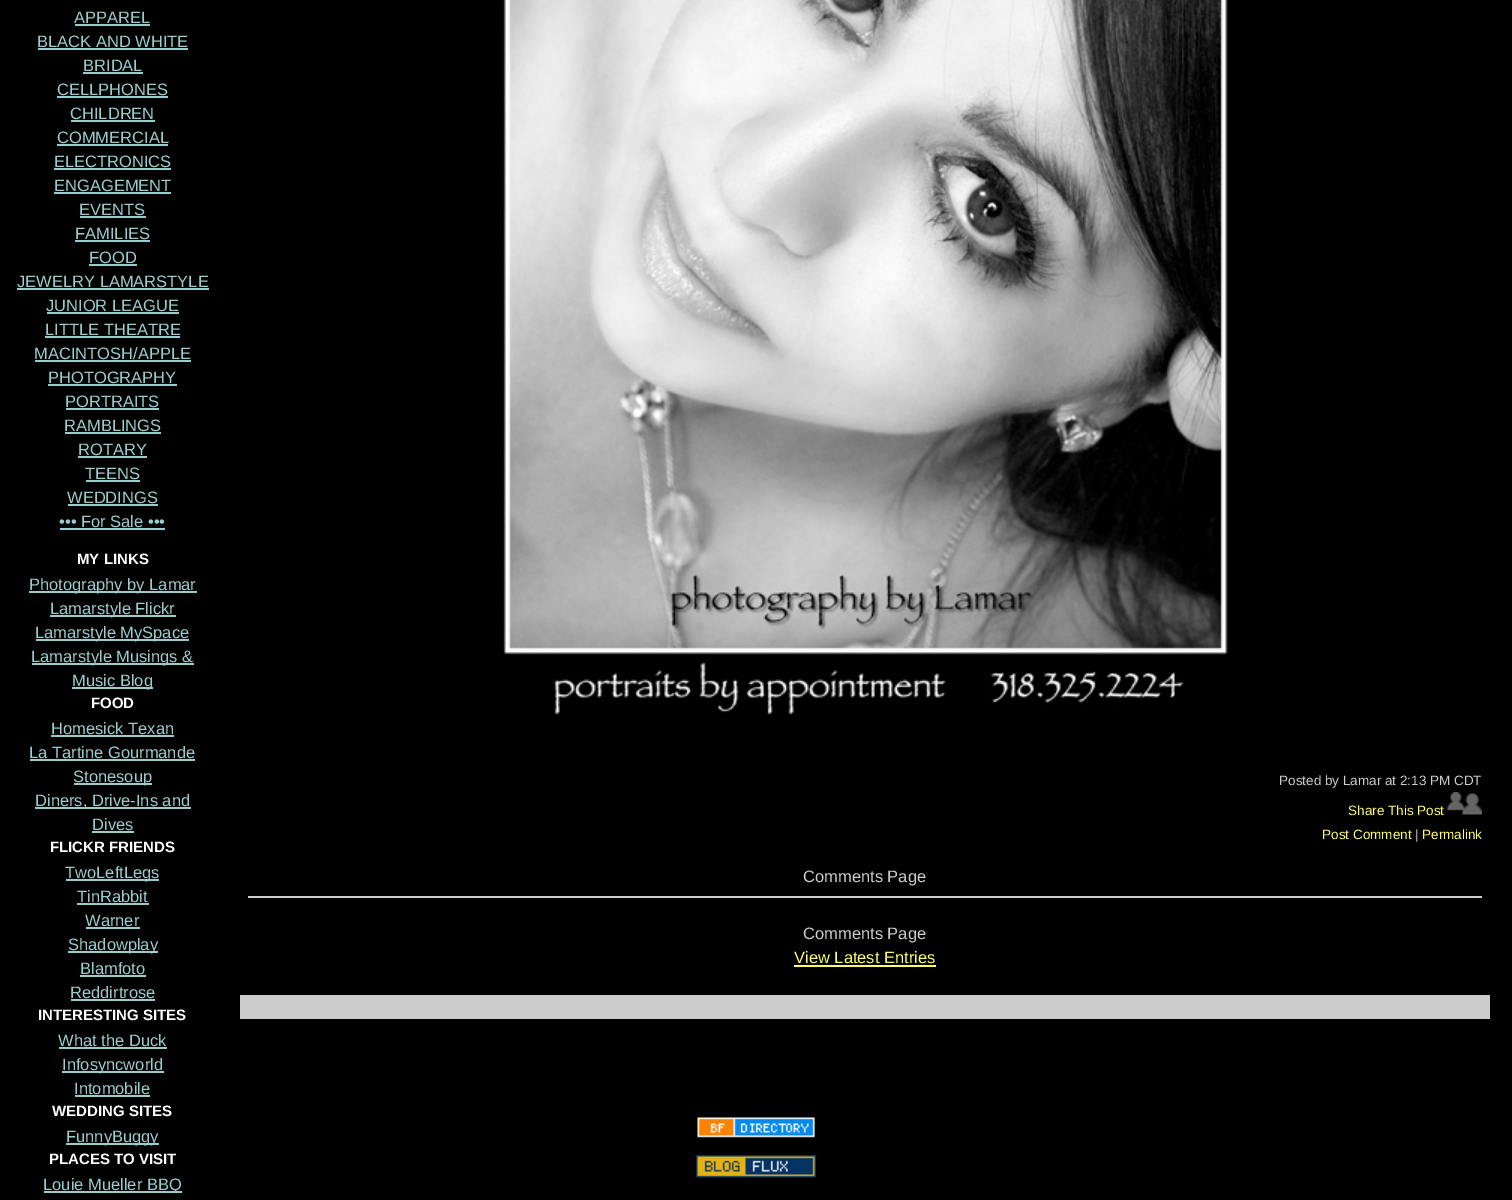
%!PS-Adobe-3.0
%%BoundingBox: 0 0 1512 1200
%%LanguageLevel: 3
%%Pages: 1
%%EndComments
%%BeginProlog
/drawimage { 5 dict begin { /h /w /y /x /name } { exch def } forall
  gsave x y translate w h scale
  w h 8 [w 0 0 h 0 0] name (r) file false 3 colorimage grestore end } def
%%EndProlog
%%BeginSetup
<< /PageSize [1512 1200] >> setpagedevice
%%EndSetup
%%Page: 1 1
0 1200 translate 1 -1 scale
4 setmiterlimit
0 setgray
0 0 1512 1200 rectfill
0.6 0.8 0.8 setrgbcolor
75 24 75 2 rectfill
38 48 150 2 rectfill
83 72 60 2 rectfill
57 96 111 2 rectfill
71 120 84 2 rectfill
57 144 111 2 rectfill
54 168 117 2 rectfill
54 192 117 2 rectfill
80 216 66 2 rectfill
75 240 75 2 rectfill
89 264 48 2 rectfill
17 288 192 2 rectfill
47 312 132 2 rectfill
45 336 135 2 rectfill
35 360 156 2 rectfill
48 384 129 2 rectfill
66 408 93 2 rectfill
65 432 96 2 rectfill
78 456 69 2 rectfill
86 480 54 2 rectfill
68 504 90 2 rectfill
60 528 105 2 rectfill
29 591 168 2 rectfill
50 615 126 2 rectfill
36 639 153 2 rectfill
32 663 162 2 rectfill
72 687 81 2 rectfill
51 735 123 2 rectfill
30 759 165 2 rectfill
74 783 78 2 rectfill
35 807 156 2 rectfill
92 831 42 2 rectfill
66 879 93 2 rectfill
77 903 72 2 rectfill
86 927 54 2 rectfill
68 951 90 2 rectfill
80 975 66 2 rectfill
71 999 84 2 rectfill
59 1047 108 2 rectfill
62 1071 102 2 rectfill
75 1095 75 2 rectfill
66 1143 93 2 rectfill
44 1191 138 2 rectfill
(images/1.raw) 503 0 725 715 drawimage
(images/2.raw) 1447 792 35 23 drawimage
0.8 setgray
248 896 1234 2 rectfill
1 1 0.4 setrgbcolor
794 965 142 2 rectfill
0.8 setgray
240 995 1250 24 rectfill
(images/3.raw) 697 1117 118 21 drawimage
(images/4.raw) 696 1155 120 23 drawimage
/LiberationSans-Regular [16.5 0 0 -16.5 0 0] selectfont
0.6 0.8 0.8 setrgbcolor
74 23 moveto (APPAREL) show
37 47 moveto (BLACK AND WHITE) show
83 71 moveto (BRIDAL) show
57 95 moveto (CELLPHONES) show
70 119 moveto (CHILDREN) show
57 143 moveto (COMMERCIAL) show
54 167 moveto (ELECTRONICS) show
54 191 moveto (ENGAGEMENT) show
79 215 moveto (EVENTS) show
75 239 moveto (FAMILIES) show
89 263 moveto (FOOD) show
17 287 moveto (JEWELRY LAMARSTYLE) show
46 311 moveto (JUNIOR LEAGUE) show
45 335 moveto (LITTLE THEATRE) show
34 359 moveto (MACINTOSH/APPLE) show
48 383 moveto (PHOTOGRAPHY) show
65 407 moveto (PORTRAITS) show
64 431 moveto (RAMBLINGS) show
78 455 moveto (ROTARY) show
85 479 moveto (TEENS) show
67 503 moveto (WEDDINGS) show
59 527 moveto (••• For Sale •••) show
/LiberationSans-Bold [15 0 0 -15 0 0] selectfont
1 setgray
77 564 moveto (MY LINKS) show
/LiberationSans-Regular [16.5 0 0 -16.5 0 0] selectfont
0.6 0.8 0.8 setrgbcolor
29 590 moveto (Photography by Lamar) show
50 614 moveto (Lamarstyle Flickr) show
35 638 moveto (Lamarstyle MySpace) show
31 662 moveto (Lamarstyle Musings &) show
72 686 moveto (Music Blog) show
/LiberationSans-Bold [15 0 0 -15 0 0] selectfont
1 setgray
91 708 moveto (FOOD) show
/LiberationSans-Regular [16.5 0 0 -16.5 0 0] selectfont
0.6 0.8 0.8 setrgbcolor
51 734 moveto (Homesick Texan) show
29 758 moveto (La Tartine Gourmande) show
73 782 moveto (Stonesoup) show
35 806 moveto (Diners, Drive-Ins and) show
92 830 moveto (Dives) show
/LiberationSans-Bold [15 0 0 -15 0 0] selectfont
1 setgray
50 852 moveto (FLICKR FRIENDS) show
/LiberationSans-Regular [16.5 0 0 -16.5 0 0] selectfont
0.6 0.8 0.8 setrgbcolor
65 878 moveto (TwoLeftLegs) show
77 902 moveto (TinRabbit) show
85 926 moveto (Warner) show
68 950 moveto (Shadowplay) show
80 974 moveto (Blamfoto) show
70 998 moveto (Reddirtrose) show
/LiberationSans-Bold [15 0 0 -15 0 0] selectfont
1 setgray
38 1020 moveto (INTERESTING SITES) show
/LiberationSans-Regular [16.5 0 0 -16.5 0 0] selectfont
0.6 0.8 0.8 setrgbcolor
58 1046 moveto (What the Duck) show
62 1070 moveto (Infosyncworld) show
74 1094 moveto (Intomobile) show
/LiberationSans-Bold [15 0 0 -15 0 0] selectfont
1 setgray
52 1116 moveto (WEDDING SITES) show
/LiberationSans-Regular [16.5 0 0 -16.5 0 0] selectfont
0.6 0.8 0.8 setrgbcolor
66 1142 moveto (FunnyBuggy) show
/LiberationSans-Bold [15 0 0 -15 0 0] selectfont
1 setgray
49 1164 moveto (PLACES TO VISIT) show
/LiberationSans-Regular [16.5 0 0 -16.5 0 0] selectfont
0.6 0.8 0.8 setrgbcolor
43 1190 moveto (Louie Mueller BBQ) show
/LiberationSans-Regular [13.5 0 0 -13.5 0 0] selectfont
0.8 setgray
1279 785 moveto (Posted by Lamar at 2:13 PM CDT) show
1 1 0.4 setrgbcolor
1348 815 moveto (Share This Post) show
1322 839 moveto (Post Comment) show
0.8 setgray
1415 839 moveto (|) show
1 1 0.4 setrgbcolor
1422 839 moveto (Permalink) show
/LiberationSans-Regular [16.5 0 0 -16.5 0 0] selectfont
0.8 setgray
803 882 moveto (Comments Page) show
803 939 moveto (Comments Page) show
1 1 0.4 setrgbcolor
794 963 moveto (View Latest Entries) show
showpage
%%EOF
